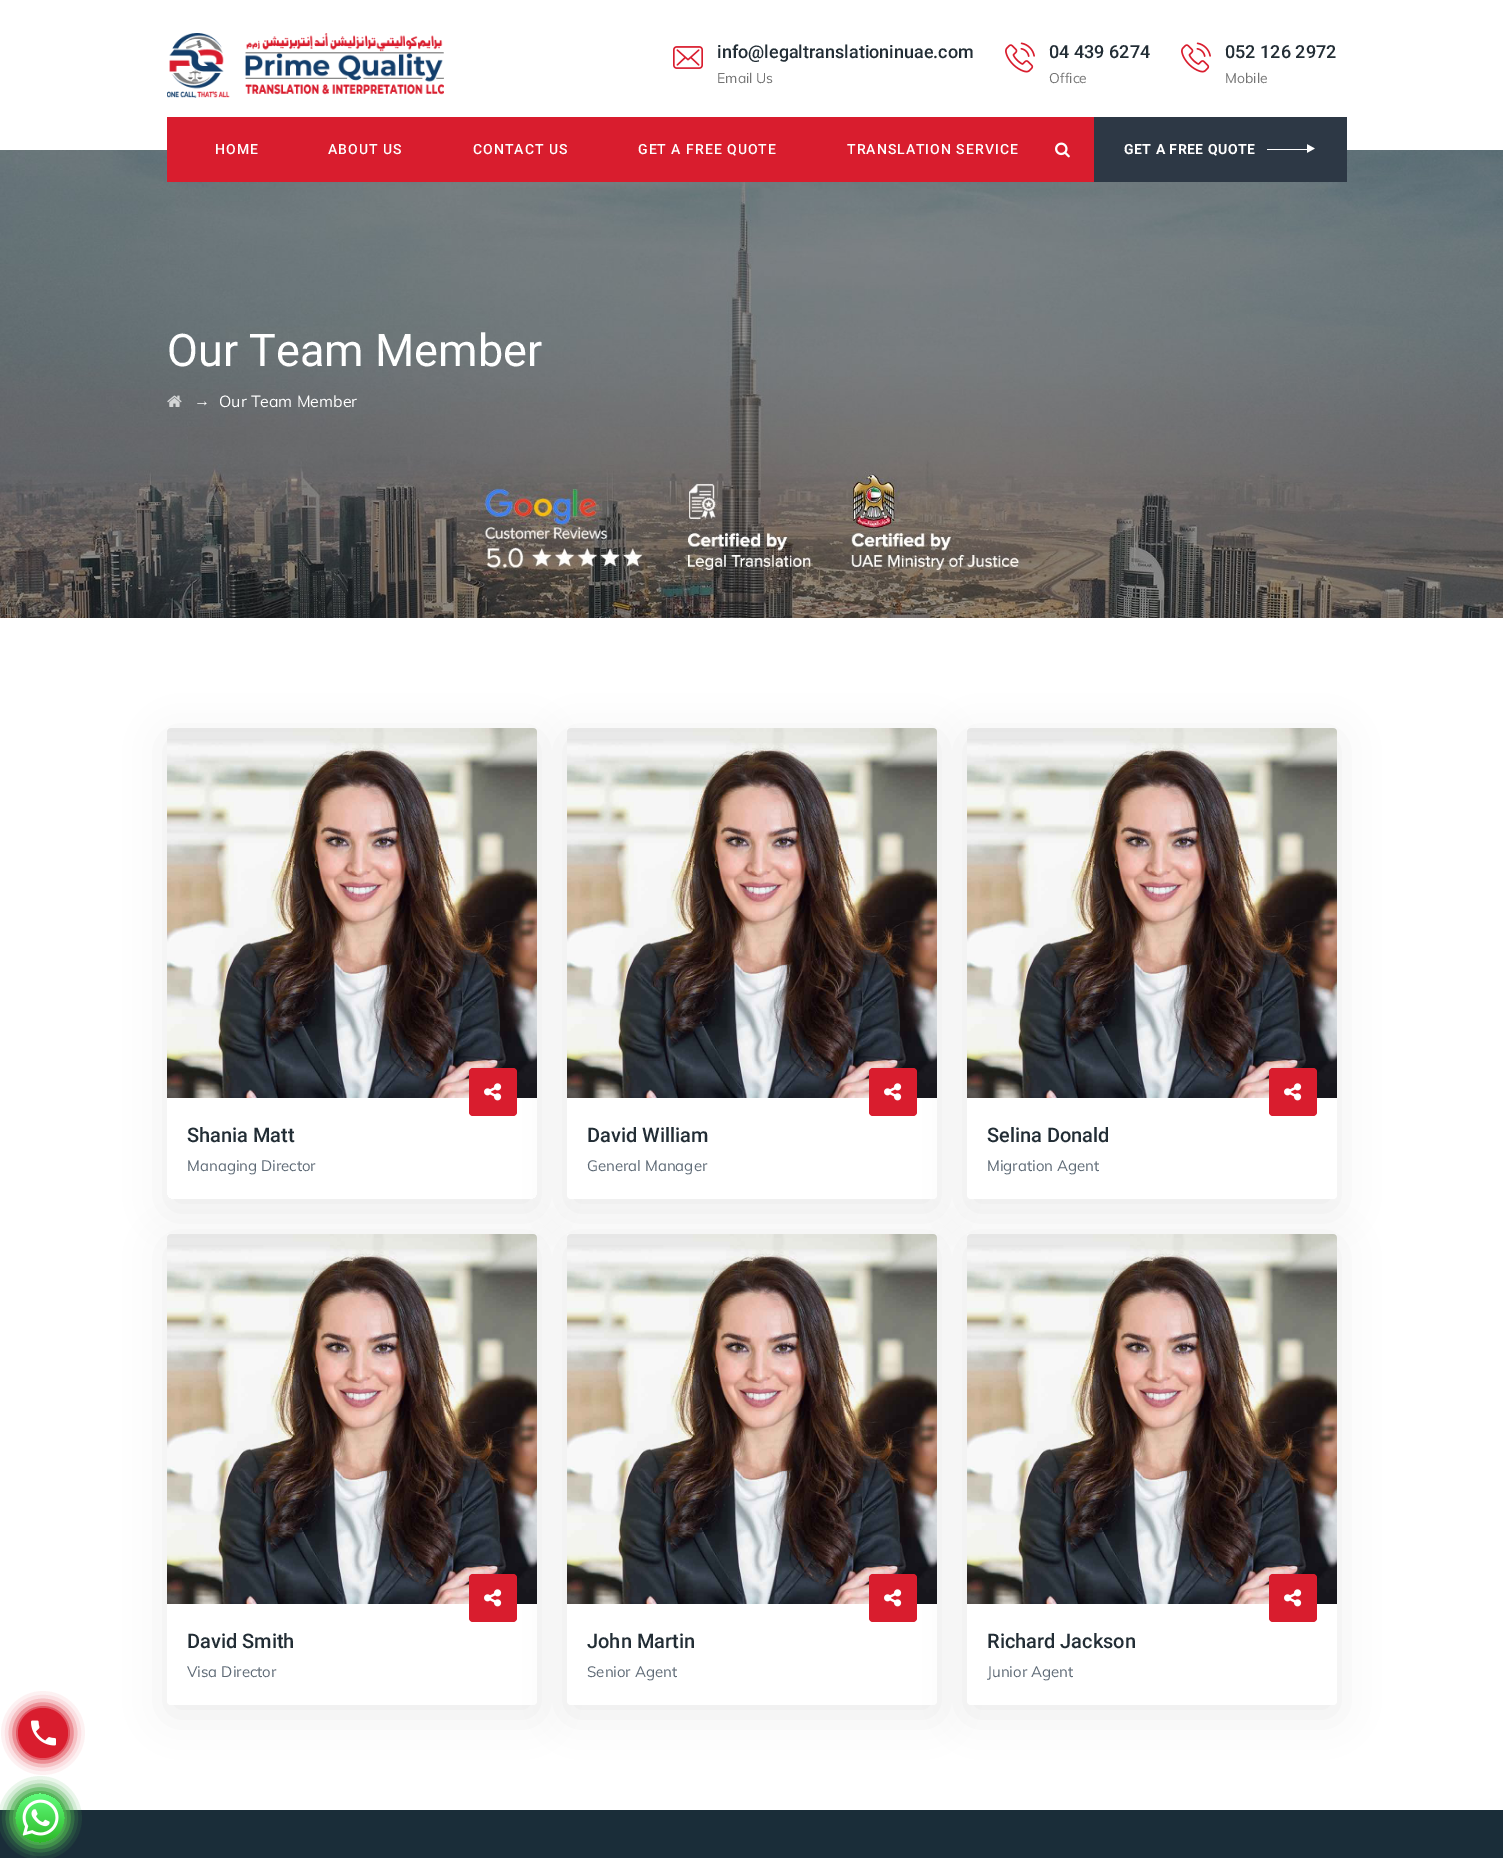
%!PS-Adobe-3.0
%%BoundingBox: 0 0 1503 1858
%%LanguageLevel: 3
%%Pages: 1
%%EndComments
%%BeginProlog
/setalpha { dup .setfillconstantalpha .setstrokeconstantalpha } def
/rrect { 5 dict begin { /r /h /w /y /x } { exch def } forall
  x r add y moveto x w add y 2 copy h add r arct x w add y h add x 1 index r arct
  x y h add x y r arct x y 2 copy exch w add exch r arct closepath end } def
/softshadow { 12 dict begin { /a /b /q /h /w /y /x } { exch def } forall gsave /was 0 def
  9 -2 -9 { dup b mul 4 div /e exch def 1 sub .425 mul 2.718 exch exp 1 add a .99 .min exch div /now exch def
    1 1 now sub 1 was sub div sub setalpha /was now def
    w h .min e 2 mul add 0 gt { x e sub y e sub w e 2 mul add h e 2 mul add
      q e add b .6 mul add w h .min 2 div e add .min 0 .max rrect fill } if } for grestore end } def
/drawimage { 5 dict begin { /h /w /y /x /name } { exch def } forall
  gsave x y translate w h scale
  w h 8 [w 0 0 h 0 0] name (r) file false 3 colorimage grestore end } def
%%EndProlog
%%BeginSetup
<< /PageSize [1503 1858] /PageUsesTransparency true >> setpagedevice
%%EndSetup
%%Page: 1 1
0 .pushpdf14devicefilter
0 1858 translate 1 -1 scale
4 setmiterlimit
1 setgray
0 0 1503 1858 rectfill
(images/1.raw) 167 33 277 65 drawimage
(images/2.raw) 673 46 30 23 drawimage
(images/3.raw) 1005 42 30 31 drawimage
(images/3.raw) 1181 42 30 31 drawimage
(images/6.raw) 0 150 1503 468 drawimage
0.851 0.114 0.18 setrgbcolor
167 117 927 65 rectfill
(images/4.raw) 1055 142 15 16 drawimage
0.176 0.22 0.271 setrgbcolor
1094 117 253 65 rectfill
1 setgray
1267 149 40 1 rectfill
(images/5.raw) 1307 144 8 9 drawimage
(images/7.raw) 167 395 15 12 drawimage
gsave
newpath 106 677 moveto 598 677 lineto 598 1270 lineto 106 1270 lineto closepath 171 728 moveto 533 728 lineto 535 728 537 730 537 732 curveto 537 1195 lineto 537 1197 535 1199 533 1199 curveto 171 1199 lineto 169 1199 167 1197 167 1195 curveto 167 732 lineto 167 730 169 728 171 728 curveto closepath eoclip newpath
0 setgray
167 738 370 471 4 20 0.07 softshadow
grestore
(images/8.raw) 167 728 370 370 drawimage
0.851 0.114 0.18 setrgbcolor
469 1068 48 48 4 rrect fill
(images/9.raw) 484 1083 18 18 drawimage
0 setgray
567 738 370 471 4 20 0.07 softshadow
1 setgray
567 728 370 471 4 rrect fill
(images/10.raw) 567 728 370 370 drawimage
0.851 0.114 0.18 setrgbcolor
869 1068 48 48 4 rrect fill
(images/9.raw) 884 1083 18 18 drawimage
0 setgray
967 738 370 471 4 20 0.07 softshadow
1 setgray
967 728 370 471 4 rrect fill
(images/11.raw) 967 728 370 370 drawimage
0.851 0.114 0.18 setrgbcolor
1269 1068 48 48 4 rrect fill
(images/9.raw) 1284 1083 18 18 drawimage
0 setgray
167 1244 370 471 4 20 0.07 softshadow
1 setgray
167 1234 370 471 4 rrect fill
(images/12.raw) 167 1234 370 370 drawimage
0.851 0.114 0.18 setrgbcolor
469 1574 48 48 4 rrect fill
(images/9.raw) 484 1589 18 18 drawimage
0 setgray
567 1244 370 471 4 20 0.07 softshadow
1 setgray
567 1234 370 471 4 rrect fill
(images/13.raw) 567 1234 370 370 drawimage
0.851 0.114 0.18 setrgbcolor
869 1574 48 48 4 rrect fill
(images/9.raw) 884 1589 18 18 drawimage
0 setgray
967 1244 370 471 4 20 0.07 softshadow
1 setgray
967 1234 370 471 4 rrect fill
(images/12.raw) 967 1234 370 370 drawimage
0.851 0.114 0.18 setrgbcolor
1269 1574 48 48 4 rrect fill
(images/9.raw) 1284 1589 18 18 drawimage
0.102 0.176 0.224 setrgbcolor
0 1810 1503 48 rectfill
(images/14.raw) 30 1851 7 7 drawimage
0.851 0.114 0.18 setrgbcolor
newpath 43 1733 25 0 360 arc closepath fill
(images/15.raw) 31 1720 25 26 drawimage
gsave
newpath 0 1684 moveto 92 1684 lineto 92 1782 lineto 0 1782 lineto closepath 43 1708 moveto 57 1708 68 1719 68 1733 curveto 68 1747 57 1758 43 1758 curveto 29 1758 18 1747 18 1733 curveto 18 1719 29 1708 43 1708 curveto closepath eoclip newpath
18 1708 50 50 25 7.5 1 softshadow
18 1708 50 50 25 7.5 1 softshadow
grestore
(images/16.raw) 15 1793 50 50 drawimage
gsave
newpath 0 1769 moveto 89 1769 lineto 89 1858 lineto 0 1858 lineto closepath 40 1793 moveto 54 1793 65 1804 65 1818 curveto 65 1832 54 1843 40 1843 curveto 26 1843 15 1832 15 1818 curveto 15 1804 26 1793 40 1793 curveto closepath eoclip newpath
0.298 0.686 0.314 setrgbcolor
15 1793 50 50 25 7.5 1 softshadow
15 1793 50 50 25 7.5 1 softshadow
15 1793 50 50 25 7.5 1 softshadow
15 1793 50 50 25 7.5 1 softshadow
grestore
/Roboto-Medium [18 0 0 -18 0 0] selectfont
0.133 0.176 0.208 setrgbcolor
717 58 moveto (info@legaltranslationinuae.com) show
/Muli-Regular [14 0 0 -14 0 0] selectfont
0.451 setgray
717 83 moveto (Email Us) show
/Roboto-Medium [18 0 0 -18 0 0] selectfont
0.133 0.176 0.208 setrgbcolor
1049 58 moveto (04 439 6274) show
/Muli-Regular [14 0 0 -14 0 0] selectfont
0.451 setgray
1049 83 moveto (Office) show
/Roboto-Medium [18 0 0 -18 0 0] selectfont
0.133 0.176 0.208 setrgbcolor
1225 58 moveto (052 126 2972) show
/Muli-Regular [14 0 0 -14 0 0] selectfont
0.451 setgray
1225 83 moveto (Mobile) show
/Roboto-Medium [14 0 0 -14 0 0] selectfont
1 setgray
215 154 moveto 1 0 (HOME) ashow
328 154 moveto 1 0 (ABOUT US) ashow
473 154 moveto 1 0 (CONTACT US) ashow
638 154 moveto 1 0 (GET A FREE QUOTE) ashow
847 154 moveto 1 0 (TRANSLATION SERVICE) ashow
/Roboto-Bold [14 0 0 -14 0 0] selectfont
1124 154 moveto 0.5 0 (GET A FREE QUOTE) ashow
/Roboto-Regular [45 0 0 -45 0 0] selectfont
167 366 moveto (Our Team Member) show
/LiberationSans-Regular [16 0 0 -16 0 0] selectfont
194 406 moveto (→) show
/Muli-Regular [16 0 0 -16 0 0] selectfont
219 407 moveto (Our Team Member) show
/Roboto-Medium [20 0 0 -20 0 0] selectfont
0.133 0.176 0.208 setrgbcolor
187 1142 moveto (Shania Matt) show
/Muli-Regular [15 0 0 -15 0 0] selectfont
0.365 0.412 0.459 setrgbcolor
187 1171 moveto (Managing Director) show
/Roboto-Medium [20 0 0 -20 0 0] selectfont
0.133 0.176 0.208 setrgbcolor
587 1142 moveto (David William) show
/Muli-Regular [15 0 0 -15 0 0] selectfont
0.365 0.412 0.459 setrgbcolor
587 1171 moveto (General Manager) show
/Roboto-Medium [20 0 0 -20 0 0] selectfont
0.133 0.176 0.208 setrgbcolor
987 1142 moveto (Selina Donald) show
/Muli-Regular [15 0 0 -15 0 0] selectfont
0.365 0.412 0.459 setrgbcolor
987 1171 moveto (Migration Agent) show
/Roboto-Medium [20 0 0 -20 0 0] selectfont
0.133 0.176 0.208 setrgbcolor
187 1648 moveto (David Smith) show
/Muli-Regular [15 0 0 -15 0 0] selectfont
0.365 0.412 0.459 setrgbcolor
187 1677 moveto (Visa Director) show
/Roboto-Medium [20 0 0 -20 0 0] selectfont
0.133 0.176 0.208 setrgbcolor
587 1648 moveto (John Martin) show
/Muli-Regular [15 0 0 -15 0 0] selectfont
0.365 0.412 0.459 setrgbcolor
587 1677 moveto (Senior Agent) show
/Roboto-Medium [20 0 0 -20 0 0] selectfont
0.133 0.176 0.208 setrgbcolor
987 1648 moveto (Richard Jackson) show
/Muli-Regular [15 0 0 -15 0 0] selectfont
0.365 0.412 0.459 setrgbcolor
987 1677 moveto (Junior Agent) show
.poppdf14devicefilter showpage
%%EOF
